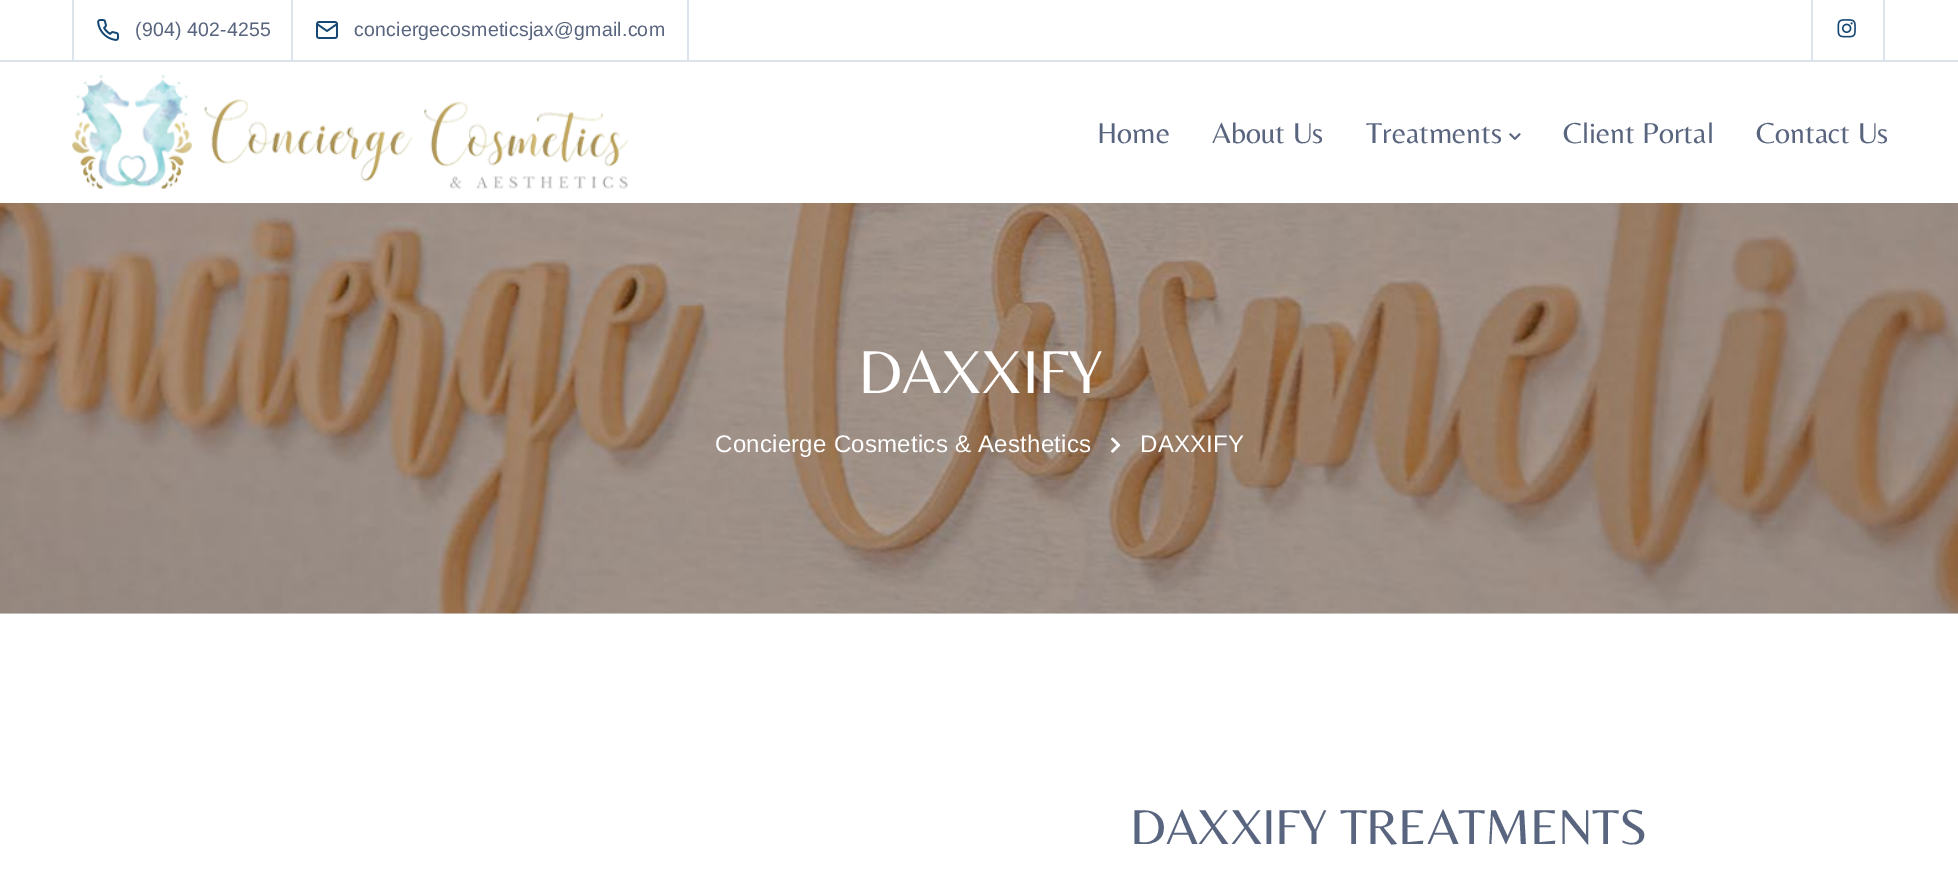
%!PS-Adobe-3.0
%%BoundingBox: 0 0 1958 894
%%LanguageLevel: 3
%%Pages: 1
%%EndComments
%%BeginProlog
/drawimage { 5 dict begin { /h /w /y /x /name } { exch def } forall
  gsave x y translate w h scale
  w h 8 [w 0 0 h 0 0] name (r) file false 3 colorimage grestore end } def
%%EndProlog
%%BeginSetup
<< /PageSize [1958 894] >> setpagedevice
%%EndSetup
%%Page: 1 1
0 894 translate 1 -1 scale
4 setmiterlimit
1 setgray
0 0 1958 894 rectfill
0.863 0.89 0.918 setrgbcolor
0 60 1958 2 rectfill
687 0 2 60 rectfill
72 0 2 60 rectfill
291 0 2 60 rectfill
(images/1.raw) 97 19 22 22 drawimage
(images/2.raw) 316 21 22 18 drawimage
1811 0 2 60 rectfill
1883 0 2 60 rectfill
(images/3.raw) 1837 19 19 19 drawimage
(images/4.raw) 72 75 557 114 drawimage
(images/5.raw) 1509 133 12 7 drawimage
0.937 0.953 0.965 setrgbcolor
0 203 1958 411 rectfill
(images/6.raw) 0 203 1958 411 drawimage
(images/7.raw) 1111 437 10 16 drawimage
/LiberationSans-Regular [19.5 0 0 -19.5 0 0] selectfont
0.349 0.396 0.498 setrgbcolor
135 36 moveto 0.2 0 (\(904\) 402-4255) ashow
354 36 moveto 0.2 0 (conciergecosmeticsjax@gmail.com) ashow
/Belleza-Regular [30 0 0 -30 0 0] selectfont
1097 143 moveto (Home) show
1212 143 moveto (About Us) show
1366 143 moveto (Treatments) show
1563 143 moveto (Client Portal) show
1756 143 moveto (Contact Us) show
/Belleza-Regular [63 0 0 -63 0 0] selectfont
1 setgray
858 393 moveto -0.5 0 (DAXXIFY) ashow
/LiberationSans-Regular [24 0 0 -24 0 0] selectfont
715 452 moveto 0.25 0 (Concierge Cosmetics & Aesthetics) ashow
1140 452 moveto 0.25 0 (DAXXIFY) ashow
/Belleza-Regular [51 0 0 -51 0 0] selectfont
0.349 0.396 0.498 setrgbcolor
1130 844 moveto -0.5 0 (DAXXIFY TREATMENTS) ashow
showpage
%%EOF
